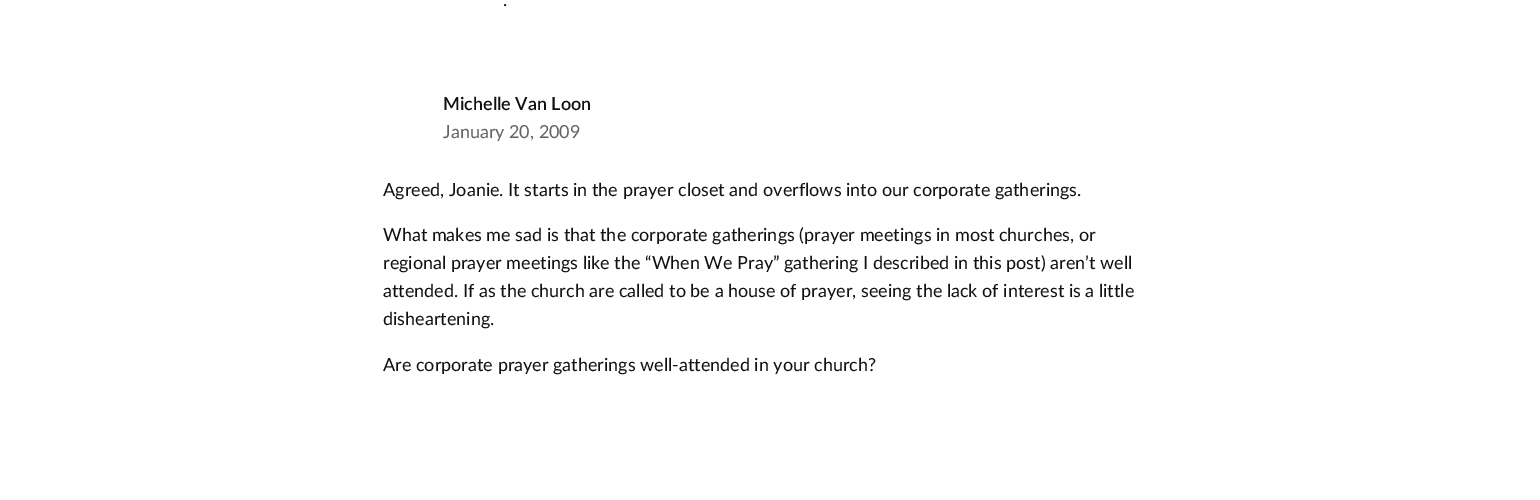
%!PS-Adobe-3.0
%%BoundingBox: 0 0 1540 500
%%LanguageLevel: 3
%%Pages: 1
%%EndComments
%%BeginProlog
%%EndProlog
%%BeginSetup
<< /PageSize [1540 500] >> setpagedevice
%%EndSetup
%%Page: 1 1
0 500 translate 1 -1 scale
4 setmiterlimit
1 setgray
0 0 1540 500 rectfill
/Lato-Regular [18 0 0 -18 0 0] selectfont
0.067 setgray
503 6 moveto (.) show
/Lato-SemiBold [18 0 0 -18 0 0] selectfont
443 110 moveto (Michelle Van Loon) show
/Lato-Regular [18 0 0 -18 0 0] selectfont
0.388 setgray
443 138 moveto (January 20, 2009) show
0.067 setgray
383 196 moveto (Agreed, Joanie. It starts in the prayer closet and overflows into our corporate gatherings.) show
383 241 moveto (What makes me sad is that the corporate gatherings \(prayer meetings in most churches, or) show
383 269 moveto (regional prayer meetings like the “When We Pray” gathering I described in this post\) aren’t well) show
383 297 moveto (attended. If as the church are called to be a house of prayer, seeing the lack of interest is a little) show
383 325 moveto (disheartening.) show
383 371 moveto (Are corporate prayer gatherings well-attended in your church?) show
showpage
%%EOF
